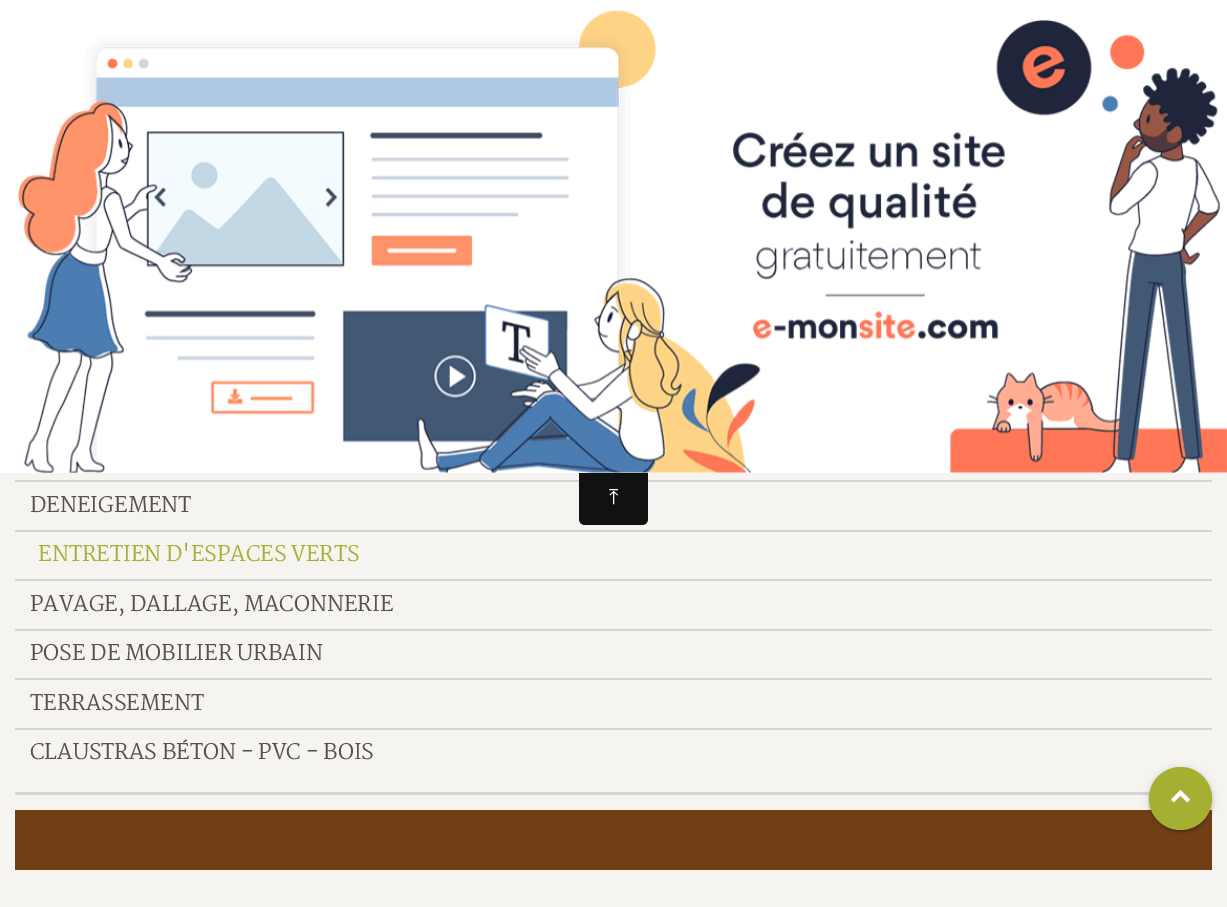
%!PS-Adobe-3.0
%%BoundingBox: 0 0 1227 907
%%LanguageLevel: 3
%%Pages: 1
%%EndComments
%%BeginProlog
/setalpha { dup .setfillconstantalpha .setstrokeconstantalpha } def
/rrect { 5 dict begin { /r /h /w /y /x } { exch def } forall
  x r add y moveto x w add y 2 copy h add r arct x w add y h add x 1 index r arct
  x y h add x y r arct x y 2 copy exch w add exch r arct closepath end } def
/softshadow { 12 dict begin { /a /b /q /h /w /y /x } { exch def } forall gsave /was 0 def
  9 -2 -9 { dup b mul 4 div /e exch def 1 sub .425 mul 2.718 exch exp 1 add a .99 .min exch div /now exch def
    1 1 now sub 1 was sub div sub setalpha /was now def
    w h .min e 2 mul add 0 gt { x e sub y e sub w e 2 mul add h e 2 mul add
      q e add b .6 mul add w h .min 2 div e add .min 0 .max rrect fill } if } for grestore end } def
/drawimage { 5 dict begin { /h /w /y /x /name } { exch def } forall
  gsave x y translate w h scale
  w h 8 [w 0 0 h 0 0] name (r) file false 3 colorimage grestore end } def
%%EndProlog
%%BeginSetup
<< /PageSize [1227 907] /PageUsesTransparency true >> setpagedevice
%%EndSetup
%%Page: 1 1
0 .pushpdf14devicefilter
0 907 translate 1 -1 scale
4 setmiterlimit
0.961 0.957 0.945 setrgbcolor
0 0 1227 907 rectfill
0.831 setgray
15 480 1197 2 rectfill
15 530 1197 2 rectfill
15 579 1197 2 rectfill
15 629 1197 2 rectfill
15 678 1197 2 rectfill
15 728 1197 2 rectfill
15 792 1197 3 rectfill
0.447 0.247 0.078 setrgbcolor
15 810 1197 60 rectfill
1 setgray
0 0 1227 473 rectfill
(images/1.raw) 17 10 1210 463 drawimage
0.067 setgray
newpath 579 473 moveto 648 473 lineto 648 519 lineto 648 522.5 645.5 525 642 525 curveto 585 525 lineto 581.5 525 579 522.5 579 519 curveto closepath fill
0 setgray
1149 768 63 63 31.5 4 0.12 softshadow
1152 774 57 57 28.5 1 0.2 softshadow
1149 770 63 63 31.5 1.5 0.14 softshadow
0.647 0.686 0.192 setrgbcolor
newpath 1180.5 798.5 31.5 0 360 arc closepath fill
(images/2.raw) 1171 790 19 13 drawimage
/Martel-Regular [21 0 0 -21 0 0] selectfont
0.337 0.322 0.286 setrgbcolor
30 512 moveto (DENEIGEMENT) show
0.647 0.686 0.192 setrgbcolor
38 561 moveto (ENTRETIEN D'ESPACES VERTS) show
0.337 0.322 0.286 setrgbcolor
30 611 moveto (PAVAGE, DALLAGE, MACONNERIE) show
30 660 moveto (POSE DE MOBILIER URBAIN) show
30 710 moveto (TERRASSEMENT) show
30 759 moveto (CLAUSTRAS BÉTON - PVC - BOIS) show
/FreeSerif-Regular [21 0 0 -21 0 0] selectfont
1 setgray
609 504 moveto (⤒) show
.poppdf14devicefilter showpage
%%EOF
